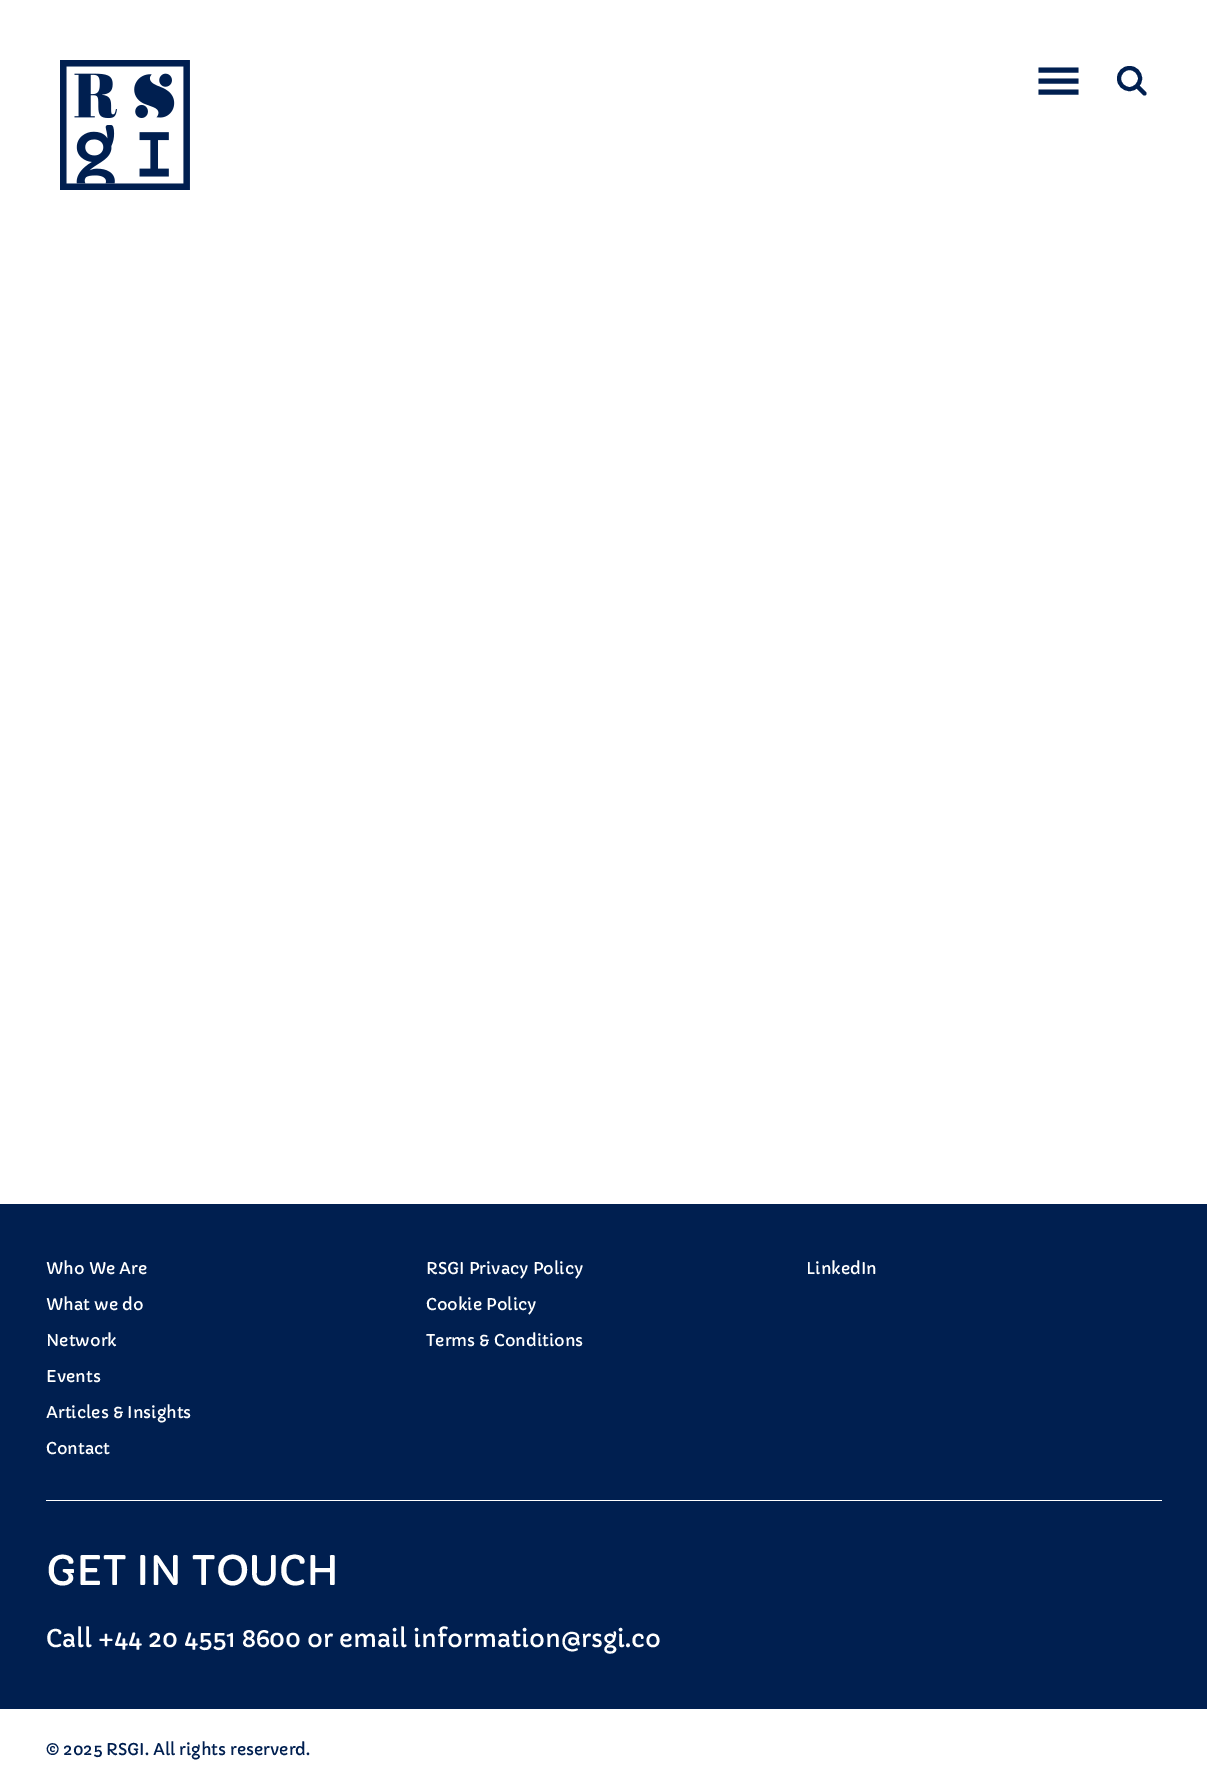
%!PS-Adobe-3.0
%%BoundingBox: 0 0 1207 1789
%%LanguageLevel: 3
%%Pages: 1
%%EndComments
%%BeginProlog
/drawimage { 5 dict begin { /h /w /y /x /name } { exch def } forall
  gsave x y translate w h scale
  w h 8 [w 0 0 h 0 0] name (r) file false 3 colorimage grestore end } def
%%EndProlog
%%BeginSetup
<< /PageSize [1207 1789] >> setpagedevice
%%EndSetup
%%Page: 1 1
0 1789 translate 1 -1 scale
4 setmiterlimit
1 setgray
0 0 1207 1789 rectfill
(images/1.raw) 60 60 130 130 drawimage
0 0.122 0.314 setrgbcolor
5 setlinewidth
newpath 1038.5 70 moveto 1078.5 70 lineto 1038.5 81 moveto 1078.5 81 lineto 1038.5 92 moveto 1078.5 92 lineto stroke
4 setlinewidth
newpath 1129.5 78.5 10.5 0 360 arc closepath stroke
1 setlinecap
newpath 1137.5 86.5 moveto 1144.5 93.5 lineto stroke
0 1204 1207 505 rectfill
1 setgray
46 1500 1116 1 rectfill
/Capriola-Regular [16 0 0 -16 0 0] selectfont
46 1274 moveto (Who We Are) show
46 1310 moveto (What we do) show
46 1346 moveto (Network) show
46 1382 moveto (Events) show
46 1418 moveto (Articles & Insights) show
46 1454 moveto (Contact) show
426 1274 moveto (RSGI Privacy Policy) show
426 1310 moveto (Cookie Policy) show
426 1346 moveto (Terms & Conditions) show
806 1274 moveto (LinkedIn) show
/Capriola-Regular [40 0 0 -40 0 0] selectfont
46 1585 moveto (GET IN TOUCH) show
/Capriola-Regular [24 0 0 -24 0 0] selectfont
46 1647 moveto (Call +44 20 4551 8600 or email information@rsgi.co) show
/Capriola-Regular [16 0 0 -16 0 0] selectfont
0 0.122 0.314 setrgbcolor
46 1755 moveto (© 2025 RSGI. All rights reserverd.) show
showpage
%%EOF
